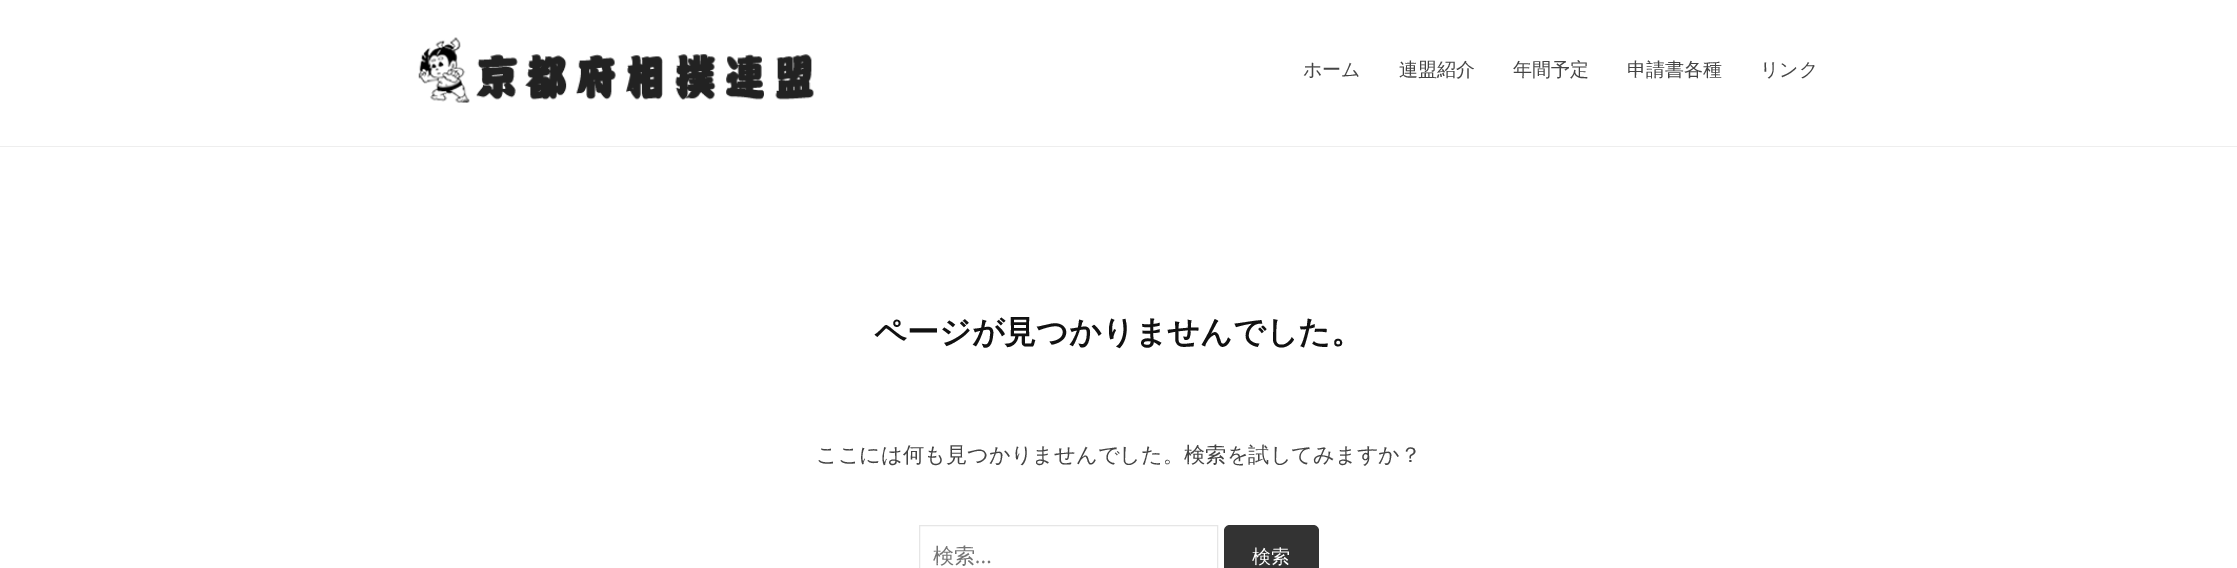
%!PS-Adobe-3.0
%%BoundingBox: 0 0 2237 568
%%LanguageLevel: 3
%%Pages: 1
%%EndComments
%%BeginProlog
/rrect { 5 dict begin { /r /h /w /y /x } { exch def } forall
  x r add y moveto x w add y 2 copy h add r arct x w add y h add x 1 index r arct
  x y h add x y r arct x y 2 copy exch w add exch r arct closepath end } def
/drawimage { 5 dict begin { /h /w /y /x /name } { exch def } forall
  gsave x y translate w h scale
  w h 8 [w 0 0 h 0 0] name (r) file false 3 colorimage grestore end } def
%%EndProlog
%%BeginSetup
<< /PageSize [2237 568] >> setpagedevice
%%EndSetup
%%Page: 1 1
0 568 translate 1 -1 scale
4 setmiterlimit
1 setgray
0 0 2237 568 rectfill
0.933 setgray
0 146 2237 1 rectfill
(images/1.raw) 418 37 396 66 drawimage
0.902 setgray
919.5 525.5 298 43 rectstroke
0.2 setgray
1224 525 95 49 6 rrect fill
/WenQuanYiZenHei-Medium [19 0 0 -19 0 0] selectfont
0.267 setgray
1303 76 moveto (ホーム) show
1399 76 moveto (連盟紹介) show
1513 76 moveto (年間予定) show
1627 76 moveto (申請書各種) show
1760 76 moveto (リンク) show
/WenQuanYiZenHei-Bold [32 0 0 -32 0 0] selectfont
0.067 setgray
874 343 moveto (ページが見つかりませんでした。) show
/WenQuanYiZenHei-Medium [21.25 0 0 -21.25 0 0] selectfont
0.267 setgray
816 462 moveto (ここには何も見つかりませんでした。検索を試してみますか？) show
0.459 setgray
933 563 moveto (検索) show
/Lora-Regular [21.25 0 0 -21.25 0 0] selectfont
975 563 moveto (…) show
/WenQuanYiZenHei-Medium [19 0 0 -19 0 0] selectfont
1 setgray
1252 563 moveto (検索) show
showpage
%%EOF
